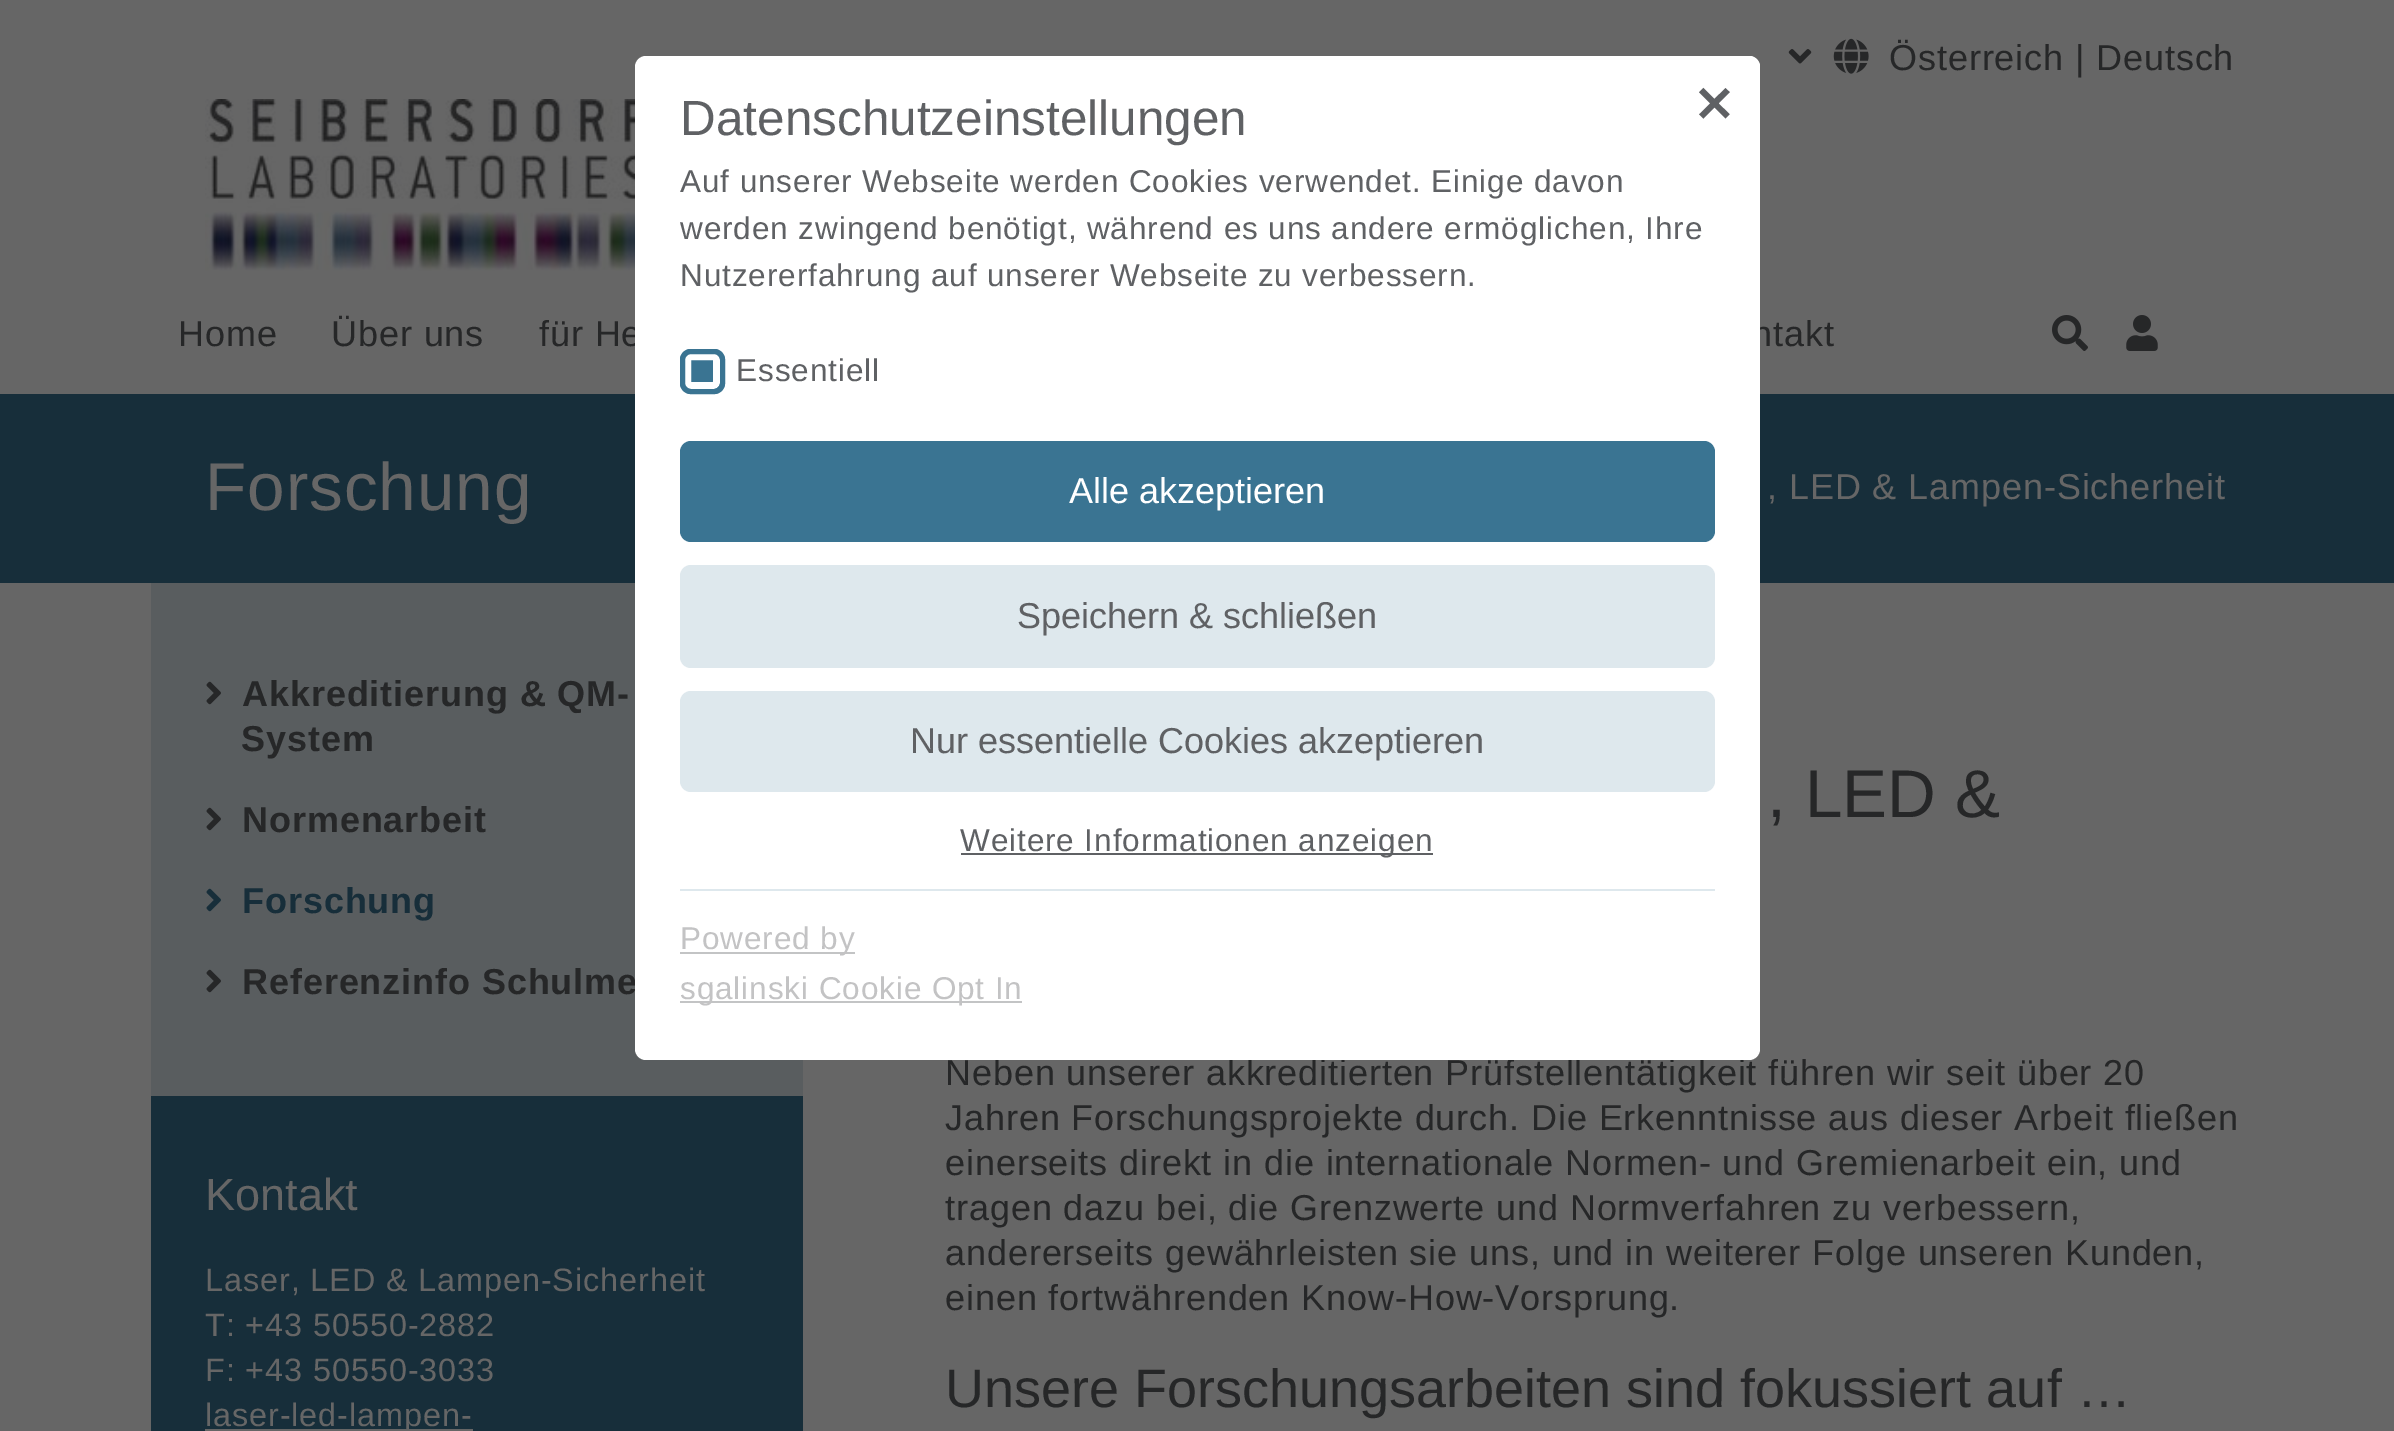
%!PS-Adobe-3.0
%%BoundingBox: 0 0 2394 1431
%%LanguageLevel: 3
%%Pages: 1
%%EndComments
%%BeginProlog
/rrect { 5 dict begin { /r /h /w /y /x } { exch def } forall
  x r add y moveto x w add y 2 copy h add r arct x w add y h add x 1 index r arct
  x y h add x y r arct x y 2 copy exch w add exch r arct closepath end } def
/drawimage { 5 dict begin { /h /w /y /x /name } { exch def } forall
  gsave x y translate w h scale
  w h 8 [w 0 0 h 0 0] name (r) file false 3 colorimage grestore end } def
%%EndProlog
%%BeginSetup
<< /PageSize [2394 1431] >> setpagedevice
%%EndSetup
%%Page: 1 1
0 1431 translate 1 -1 scale
4 setmiterlimit
0.4 setgray
0 0 2394 1431 rectfill
(images/1.raw) 1788 49 24 15 drawimage
(images/2.raw) 1833 38 36 36 drawimage
(images/3.raw) 205 99 430 172 drawimage
(images/4.raw) 2052 315 36 36 drawimage
(images/5.raw) 2126 315 32 36 drawimage
0.09 0.18 0.227 setrgbcolor
0 394 2394 189 rectfill
0.349 0.365 0.373 setrgbcolor
151 583 652 513 rectfill
(images/6.raw) 206 681 15 24 drawimage
(images/6.raw) 206 807 15 24 drawimage
(images/7.raw) 206 888 15 24 drawimage
(images/6.raw) 206 969 15 24 drawimage
0.09 0.18 0.227 setrgbcolor
151 1096 652 335 rectfill
0.4 setgray
205 1429 268 2 rectfill
/LiberationSans-Regular [36 0 0 -36 0 0] selectfont
0.149 0.153 0.157 setrgbcolor
1889 70 moveto 0.9 0 (Österreich | Deutsch) ashow
178 346 moveto 0.9 0 (Home) ashow
331 346 moveto 0.9 0 (Über uns) ashow
539 346 moveto 0.9 0 (für He) ashow
1752 346 moveto 0.9 0 (ntakt) ashow
/LiberationSans-Regular [67.5 0 0 -67.5 0 0] selectfont
0.4 setgray
205 510 moveto 0.9 0 (Forschung) ashow
/LiberationSans-Regular [36 0 0 -36 0 0] selectfont
1767 499 moveto 0.9 0 (, LED & Lampen-Sicherheit) ashow
/LiberationSans-Bold [36 0 0 -36 0 0] selectfont
0.149 0.153 0.157 setrgbcolor
242 706 moveto 0.9 0 (Akkreditierung & QM-) ashow
241 751 moveto 0.9 0 (System) ashow
242 832 moveto 0.9 0 (Normenarbeit) ashow
0.09 0.18 0.227 setrgbcolor
242 913 moveto 0.9 0 (Forschung) ashow
0.149 0.153 0.157 setrgbcolor
242 994 moveto 0.9 0 (Referenzinfo Schulme) ashow
/LiberationSans-Regular [45 0 0 -45 0 0] selectfont
0.4 setgray
205 1210 moveto (Kontakt) show
/LiberationSans-Regular [32.4 0 0 -32.4 0 0] selectfont
205 1291 moveto 0.9 0 (Laser, LED & Lampen-Sicherheit) ashow
205 1336 moveto 0.9 0 (T: +43 50550-2882) ashow
205 1381 moveto 0.9 0 (F: +43 50550-3033) ashow
205 1426 moveto 0.9 0 (laser-led-lampen-) ashow
/LiberationSans-Regular [67.5 0 0 -67.5 0 0] selectfont
0.149 0.153 0.157 setrgbcolor
1767 817 moveto (, LED &) show
/LiberationSans-Regular [36 0 0 -36 0 0] selectfont
945 1085 moveto 0.9 0 (Neben unserer akkreditierten Prüfstellentätigkeit führen wir seit über 20) ashow
945 1130 moveto 0.9 0 (Jahren Forschungsprojekte durch. Die Erkenntnisse aus dieser Arbeit fließen) ashow
945 1175 moveto 0.9 0 (einerseits direkt in die internationale Normen- und Gremienarbeit ein, und) ashow
945 1220 moveto 0.9 0 (tragen dazu bei, die Grenzwerte und Normverfahren zu verbessern,) ashow
945 1265 moveto 0.9 0 (andererseits gewährleisten sie uns, und in weiterer Folge unseren Kunden,) ashow
945 1310 moveto 0.9 0 (einen fortwährenden Know-How-Vorsprung.) ashow
/LiberationSans-Regular [54 0 0 -54 0 0] selectfont
945 1407 moveto (Unsere Forschungsarbeiten sind fokussiert auf …) show
1 setgray
635 56 1125 1004 11 rrect fill
/LiberationSans-Regular [49.5 0 0 -49.5 0 0] selectfont
0.373 0.38 0.392 setrgbcolor
680 135 moveto (Datenschutzeinstellungen) show
1 setgray
newpath 1670 56 moveto 1749 56 lineto 1755 56 1760 61 1760 67 curveto 1760 153 lineto 1670 153 lineto closepath fill
/DejaVuSans-Bold [49.5 0 0 -49.5 0 0] selectfont
0.373 0.38 0.392 setrgbcolor
1693 122 moveto (✕) show
/LiberationSans-Regular [31.5 0 0 -31.5 0 0] selectfont
680 192 moveto 0.9 0 (Auf unserer Webseite werden Cookies verwendet. Einige davon) ashow
680 239 moveto 0.9 0 (werden zwingend benötigt, während es uns andere ermöglichen, Ihre) ashow
680 286 moveto 0.9 0 (Nutzererfahrung auf unserer Webseite zu verbessern.) ashow
0.227 0.455 0.573 setrgbcolor
680 349 45 45 11 rrect fill
1 setgray
7 setlinewidth
687.5 356.5 29 29 3.5 rrect stroke
0.227 0.455 0.573 setrgbcolor
5 setlinewidth
682.5 351.5 40 40 8.5 rrect stroke
0.373 0.38 0.392 setrgbcolor
736 381 moveto 0.9 0 (Essentiell) ashow
0.227 0.455 0.573 setrgbcolor
680 441 1035 101 11 rrect fill
/LiberationSans-Regular [36 0 0 -36 0 0] selectfont
1 setgray
1069 503 moveto (Alle akzeptieren) show
0.871 0.91 0.929 setrgbcolor
680 565 1035 103 11 rrect fill
0.373 0.38 0.392 setrgbcolor
1017 628 moveto (Speichern & schließen) show
0.871 0.91 0.929 setrgbcolor
680 691 1035 101 11 rrect fill
0.373 0.38 0.392 setrgbcolor
910 753 moveto (Nur essentielle Cookies akzeptieren) show
961 853 472 2 rectfill
/LiberationSans-Regular [31.5 0 0 -31.5 0 0] selectfont
960 851 moveto 0.9 0 (Weitere Informationen anzeigen) ashow
0.871 0.91 0.929 setrgbcolor
680 889 1035 2 rectfill
0.765 0.769 0.773 setrgbcolor
680 952 175 2 rectfill
0.765 0.765 0.769 setrgbcolor
680 949 moveto 0.9 0 (Powered by) ashow
0.765 0.769 0.773 setrgbcolor
680 1001 342 2 rectfill
0.765 0.765 0.769 setrgbcolor
680 999 moveto 0.9 0 (sgalinski Cookie Opt In) ashow
showpage
%%EOF
